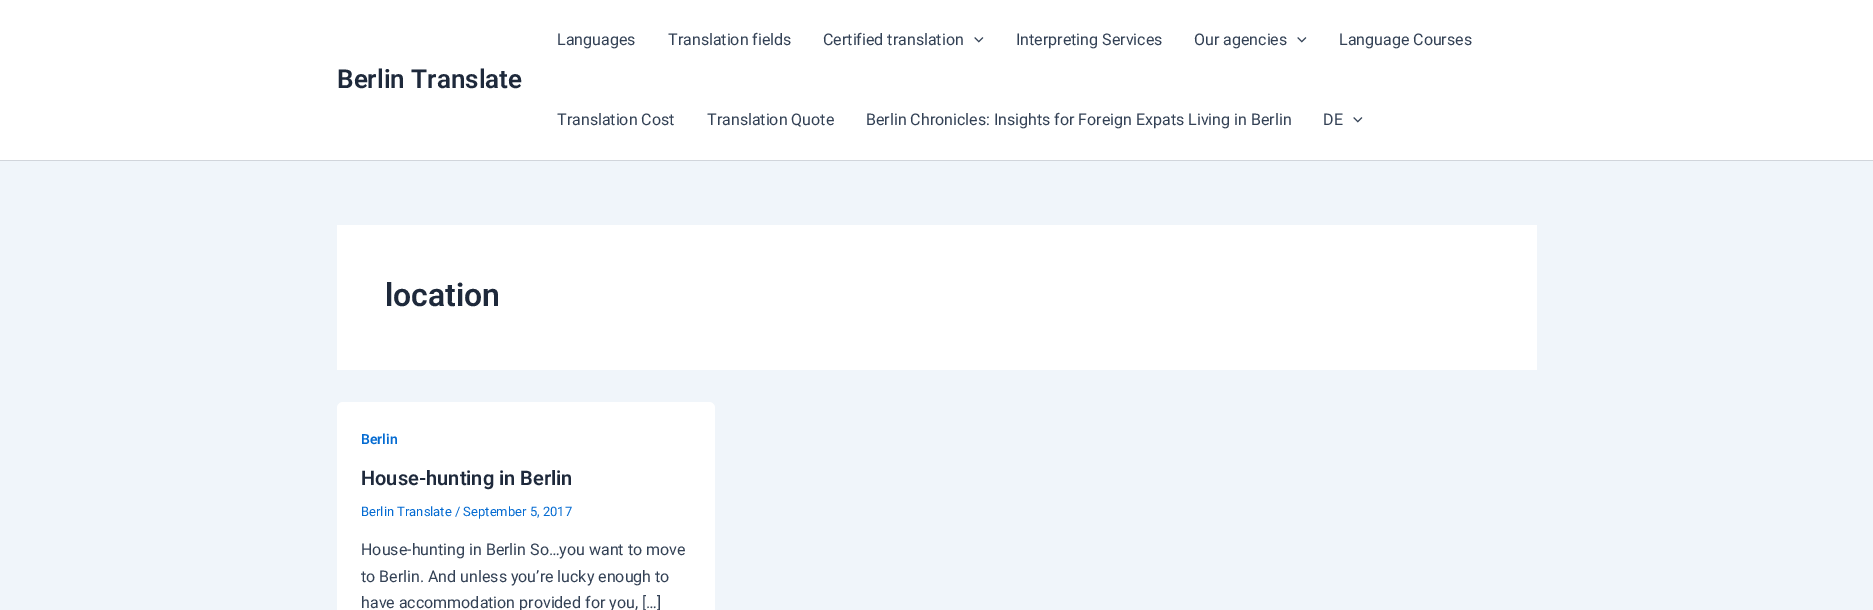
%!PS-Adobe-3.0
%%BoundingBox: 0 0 1873 610
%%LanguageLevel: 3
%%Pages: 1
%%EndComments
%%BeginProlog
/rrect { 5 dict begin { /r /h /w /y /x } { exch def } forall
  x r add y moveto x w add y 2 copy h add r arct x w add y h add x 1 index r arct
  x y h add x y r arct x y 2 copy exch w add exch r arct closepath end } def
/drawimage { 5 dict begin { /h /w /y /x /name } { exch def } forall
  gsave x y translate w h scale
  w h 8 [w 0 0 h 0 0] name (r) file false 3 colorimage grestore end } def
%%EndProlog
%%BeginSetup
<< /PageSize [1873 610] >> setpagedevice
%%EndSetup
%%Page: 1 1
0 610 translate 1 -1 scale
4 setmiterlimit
0.941 0.961 0.98 setrgbcolor
0 0 1873 610 rectfill
1 setgray
0 0 1873 160 rectfill
0.82 0.835 0.859 setrgbcolor
0 160 1873 1 rectfill
(images/1.raw) 974 37 10 6 drawimage
(images/1.raw) 1297 37 10 6 drawimage
(images/1.raw) 1353 117 10 6 drawimage
1 setgray
337 225 1200 145 rectfill
337 402 378 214 6 rrect fill
/Roboto-SemiBold [26 0 0 -26 0 0] selectfont
0.118 0.161 0.231 setrgbcolor
337 88 moveto (Berlin Translate) show
/Roboto-Regular [16 0 0 -16 0 0] selectfont
0.2 0.255 0.333 setrgbcolor
557 45 moveto (Languages) show
668 45 moveto (Translation fields) show
823 45 moveto (Certified translation) show
1016 45 moveto (Interpreting Services) show
1194 45 moveto (Our agencies) show
1339 45 moveto (Language Courses) show
557 125 moveto (Translation Cost) show
707 125 moveto (Translation Quote) show
866 125 moveto (Berlin Chronicles: Insights for Foreign Expats Living in Berlin) show
1323 125 moveto (DE) show
/Roboto-SemiBold [32 0 0 -32 0 0] selectfont
0.118 0.161 0.231 setrgbcolor
385 306 moveto (location) show
/Roboto-SemiBold [14 0 0 -14 0 0] selectfont
0.016 0.42 0.824 setrgbcolor
361 444 moveto (Berlin) show
/Roboto-SemiBold [20 0 0 -20 0 0] selectfont
0.118 0.161 0.231 setrgbcolor
361 485 moveto (House-hunting in Berlin) show
/Roboto-Regular [13 0 0 -13 0 0] selectfont
0.016 0.42 0.824 setrgbcolor
361 516 moveto (Berlin Translate / September 5, 2017) show
/Roboto-Regular [16 0 0 -16 0 0] selectfont
0.2 0.255 0.333 setrgbcolor
361 555 moveto (House-hunting in Berlin So…you want to move) show
361 582 moveto (to Berlin. And unless you’re lucky enough to) show
361 608 moveto (have accommodation provided for you, […]) show
showpage
%%EOF
